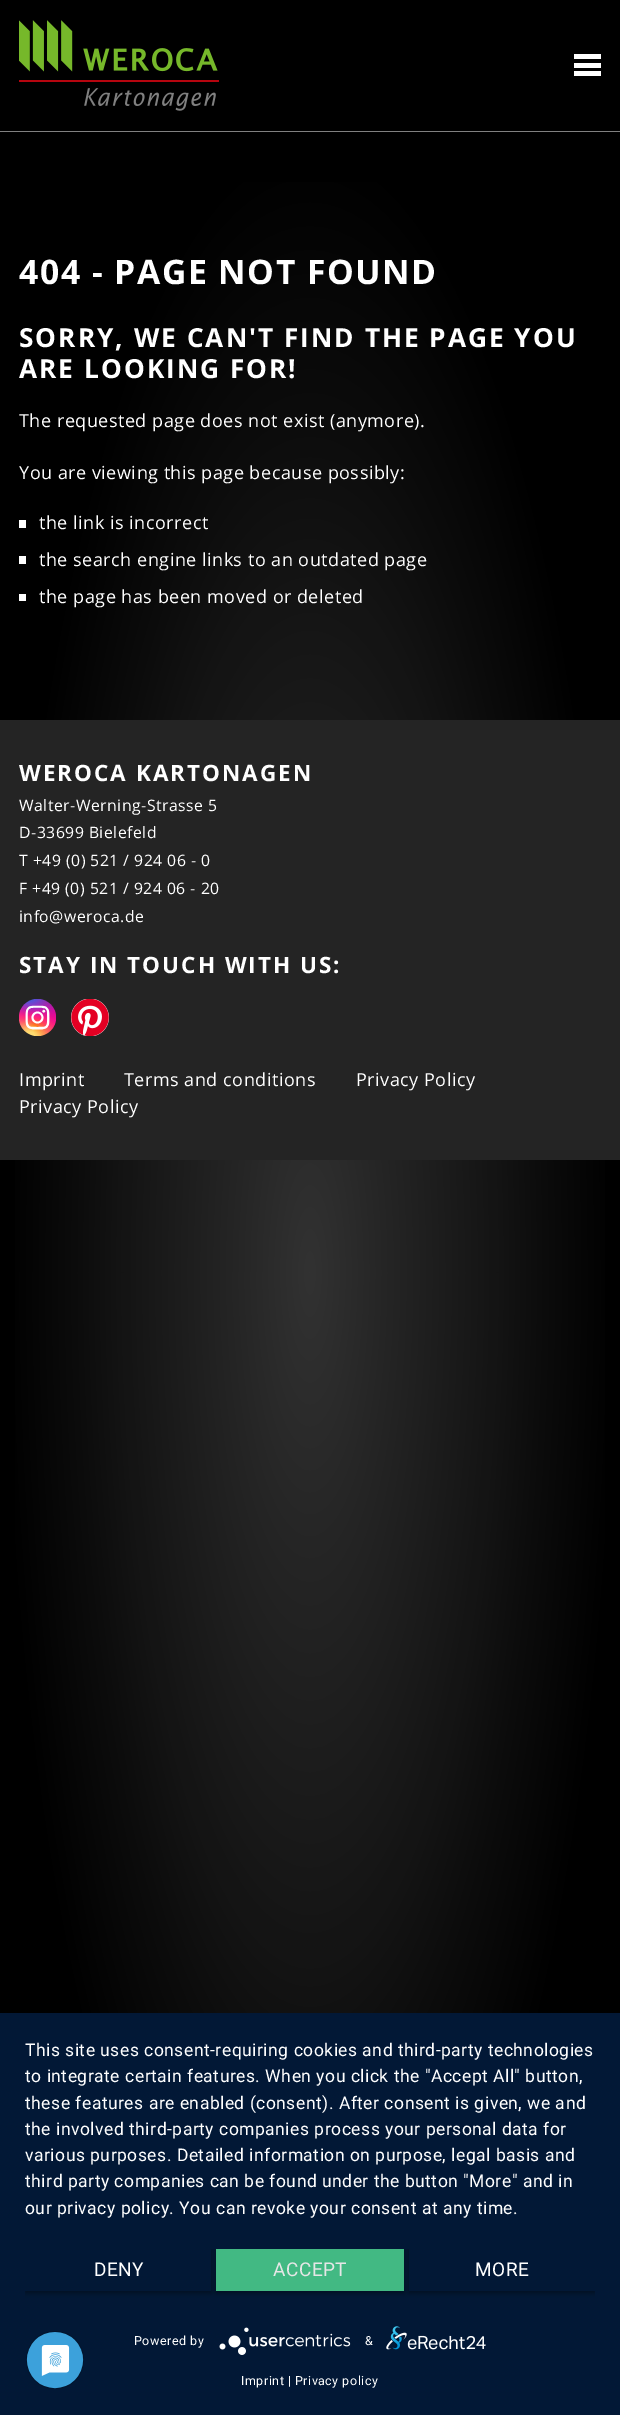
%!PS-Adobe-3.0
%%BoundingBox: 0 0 620 2415
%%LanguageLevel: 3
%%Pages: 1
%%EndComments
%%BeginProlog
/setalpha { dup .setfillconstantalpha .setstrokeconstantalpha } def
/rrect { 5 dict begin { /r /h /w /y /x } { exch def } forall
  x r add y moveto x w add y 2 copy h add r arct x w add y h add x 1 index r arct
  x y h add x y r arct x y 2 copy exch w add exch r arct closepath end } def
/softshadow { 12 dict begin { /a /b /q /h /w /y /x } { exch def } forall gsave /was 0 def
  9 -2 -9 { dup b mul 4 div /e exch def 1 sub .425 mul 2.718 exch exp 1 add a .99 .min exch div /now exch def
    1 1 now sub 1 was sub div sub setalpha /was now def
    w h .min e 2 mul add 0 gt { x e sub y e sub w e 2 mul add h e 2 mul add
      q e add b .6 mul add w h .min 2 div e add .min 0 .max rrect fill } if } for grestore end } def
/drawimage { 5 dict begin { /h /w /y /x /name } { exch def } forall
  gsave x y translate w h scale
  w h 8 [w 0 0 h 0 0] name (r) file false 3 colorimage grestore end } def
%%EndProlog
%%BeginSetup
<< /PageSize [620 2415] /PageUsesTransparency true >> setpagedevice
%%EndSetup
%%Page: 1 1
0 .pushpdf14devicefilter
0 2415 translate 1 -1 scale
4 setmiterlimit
0 setgray
0 0 620 2415 rectfill
0.502 setgray
0 131 620 1 rectfill
(images/1.raw) 19 20 200 91 drawimage
1 setgray
574 54 27 5 rectfill
574 63 27 5 rectfill
574 71 27 5 rectfill
gsave newpath 15 182 moveto 605 182 lineto 605 2013 lineto 15 2013 lineto closepath clip newpath 310 1273 translate 310 1142 scale
<< /ShadingType 3 /ColorSpace /DeviceRGB /Coords [0 0 0 0 0 1] /Extend [true true] /Function << /FunctionType 3 /Domain [0 1] /Functions [<< /FunctionType 2 /Domain [0 1] /C0 [0.196 0.196 0.196] /C1 [0.078 0.078 0.078] /N 1 >> << /FunctionType 2 /Domain [0 1] /C0 [0.078 0.078 0.078] /C1 [0 0 0] /N 1 >>] /Bounds [0.6] /Encode [0 1 0 1] >> >> shfill grestore
19 520 7 8 rectfill
19 556 7 8 rectfill
19 594 7 7 rectfill
0.141 setgray
0 720 620 440 rectfill
(images/2.raw) 19 999 37 37 drawimage
(images/3.raw) 71 999 38 37 drawimage
0.008 0.094 0.212 setrgbcolor
0 2013 620 402 rectfill
gsave
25 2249 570 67 rectclip
newpath 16 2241 moveto 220 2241 lineto 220 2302 lineto 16 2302 lineto closepath 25 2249 moveto 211 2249 lineto 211 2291 lineto 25 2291 lineto closepath eoclip newpath
0 setgray
25 2250 186 43 0 2.5 0.4 softshadow
grestore
gsave
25 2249 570 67 rectclip
0 setgray
216 2250 188 43 0 2.5 0.4 softshadow
grestore
0.259 0.725 0.514 setrgbcolor
216 2249 188 42 rectfill
gsave
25 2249 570 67 rectclip
newpath 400 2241 moveto 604 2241 lineto 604 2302 lineto 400 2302 lineto closepath 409 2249 moveto 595 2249 lineto 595 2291 lineto 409 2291 lineto closepath eoclip newpath
0 setgray
409 2250 186 43 0 2.5 0.4 softshadow
grestore
(images/4.raw) 219 2327 132 28 drawimage
(images/5.raw) 386 2326 100 24 drawimage
(images/6.raw) 26 2331 58 58 drawimage
/OpenSans-Bold [33.75 0 0 -33.75 0 0] selectfont
1 setgray
19 284 moveto 1.5 0 (404 - PAGE NOT FOUND) ashow
/OpenSans-Bold [26.25 0 0 -26.25 0 0] selectfont
19 347 moveto 2 0 (SORRY, WE CAN'T FIND THE PAGE YOU) ashow
19 378 moveto 2 0 (ARE LOOKING FOR!) ashow
/OpenSans-Regular [18 0 0 -18 0 0] selectfont
19 427 moveto 0.5 0 (The requested page does not exist \(anymore\).) ashow
19 479 moveto 0.5 0 (You are viewing this page because possibly:) ashow
39 529 moveto 0.5 0 (the link is incorrect) ashow
39 566 moveto 0.5 0 (the search engine links to an outdated page) ashow
39 603 moveto 0.5 0 (the page has been moved or deleted) ashow
/OpenSans-Bold [22.5 0 0 -22.5 0 0] selectfont
19 781 moveto 2 0 (WEROCA KARTONAGEN) ashow
/OpenSans-Regular [15.75 0 0 -15.75 0 0] selectfont
19 811 moveto 0.5 0 (Walter-Werning-Strasse 5) ashow
19 838 moveto 0.5 0 (D-33699 Bielefeld) ashow
19 866 moveto 0.5 0 (T +49 \(0\) 521 / 924 06 - 0) ashow
19 894 moveto 0.5 0 (F +49 \(0\) 521 / 924 06 - 20) ashow
19 922 moveto 0.5 0 (info@weroca.de) ashow
/OpenSans-Bold [22.5 0 0 -22.5 0 0] selectfont
19 973 moveto 2 0 (STAY IN TOUCH WITH US:) ashow
/OpenSans-Regular [18 0 0 -18 0 0] selectfont
19 1086 moveto 0.5 0 (Imprint) ashow
124 1086 moveto 0.5 0 (Terms and conditions) ashow
356 1086 moveto 0.5 0 (Privacy Policy) ashow
19 1113 moveto 0.5 0 (Privacy Policy) ashow
/Roboto-Regular [17.5 0 0 -17.5 0 0] selectfont
25 2056 moveto 0.5 0 (This site uses consent-requiring cookies and third-party technologies) ashow
25 2082 moveto 0.5 0 (to integrate certain features. When you click the "Accept All" button,) ashow
25 2109 moveto 0.5 0 (these features are enabled \(consent\). After consent is given, we and) ashow
25 2135 moveto 0.5 0 (the involved third-party companies process your personal data for) ashow
25 2161 moveto 0.5 0 (various purposes. Detailed information on purpose, legal basis and) ashow
25 2187 moveto 0.5 0 (third party companies can be found under the button "More" and in) ashow
25 2214 moveto 0.5 0 (our privacy policy. You can revoke your consent at any time.) ashow
/Roboto-Regular [19 0 0 -19 0 0] selectfont
94 2276 moveto 0.5 0 (DENY) ashow
0.902 setgray
273 2276 moveto 0.5 0 (ACCEPT) ashow
1 setgray
475 2276 moveto 0.5 0 (MORE) ashow
/Roboto-Regular [12.5 0 0 -12.5 0 0] selectfont
134 2345 moveto 0.5 0 (Powered by) ashow
365 2345 moveto 0.5 0 (&) ashow
241 2385 moveto 0.5 0 (Imprint | Privacy policy) ashow
.poppdf14devicefilter showpage
%%EOF
